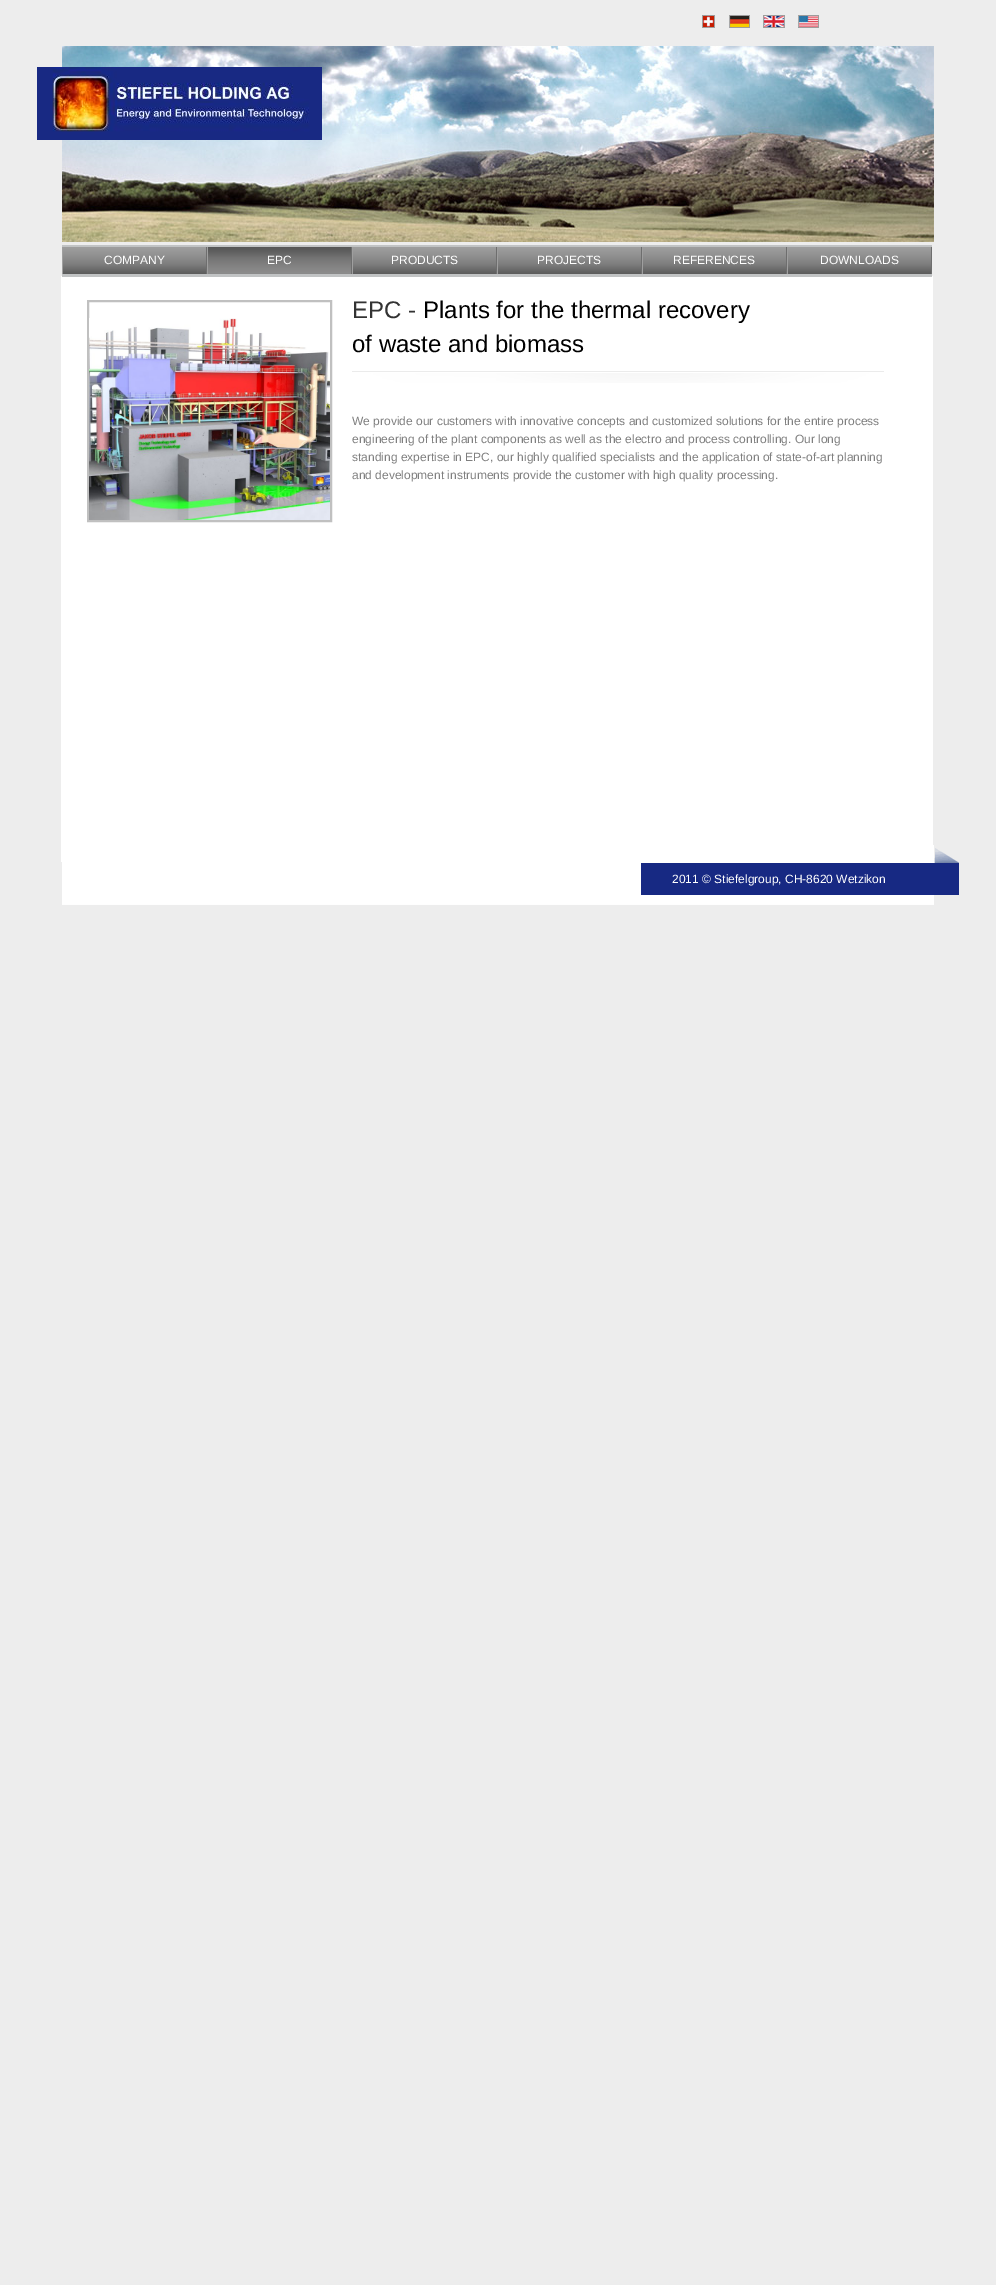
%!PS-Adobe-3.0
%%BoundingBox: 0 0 996 2285
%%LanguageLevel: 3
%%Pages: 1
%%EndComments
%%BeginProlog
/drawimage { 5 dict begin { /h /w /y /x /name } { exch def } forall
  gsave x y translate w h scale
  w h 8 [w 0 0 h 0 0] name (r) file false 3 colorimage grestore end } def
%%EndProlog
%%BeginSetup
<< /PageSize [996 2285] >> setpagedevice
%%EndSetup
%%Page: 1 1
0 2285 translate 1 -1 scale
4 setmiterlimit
0.929 setgray
0 0 996 2285 rectfill
(images/1.raw) 702 15 48 13 drawimage
(images/2.raw) 763 15 56 13 drawimage
(images/3.raw) 62 46 872 196 drawimage
(images/4.raw) 37 67 285 73 drawimage
1 setgray
61 276 872 586 rectfill
(images/5.raw) 62 245 145 32 drawimage
(images/6.raw) 207 245 145 32 drawimage
(images/5.raw) 352 245 145 32 drawimage
(images/5.raw) 497 245 145 32 drawimage
(images/5.raw) 642 245 145 32 drawimage
(images/5.raw) 787 245 145 32 drawimage
0.753 setgray
2 setlinewidth
88 301 243 220 rectstroke
(images/7.raw) 89 318 241 202 drawimage
(images/8.raw) 352 371 532 12 drawimage
(images/9.raw) 62 845 897 60 drawimage
/LiberationSans-Regular [12 0 0 -12 0 0] selectfont
1 setgray
104 264 moveto (COMPANY) show
267 264 moveto (EPC) show
391 264 moveto (PRODUCTS) show
537 264 moveto (PROJECTS) show
673 264 moveto (REFERENCES) show
820 264 moveto (DOWNLOADS) show
/LiberationSans-Regular [24 0 0 -24 0 0] selectfont
0.2 setgray
352 318 moveto (EPC -) show
0 setgray
423 318 moveto (Plants for the thermal recovery) show
352 352 moveto (of waste and biomass) show
/LiberationSans-Regular [12 0 0 -12 0 0] selectfont
0.498 setgray
352 425 moveto (We provide our customers with innovative concepts and customized solutions for the entire process) show
352 443 moveto (engineering of the plant components as well as the electro and process controlling. Our long) show
352 461 moveto (standing expertise in EPC, our highly qualified specialists and the application of state-of-art planning) show
352 479 moveto (and development instruments provide the customer with high quality processing.) show
1 setgray
672 883 moveto (2011 © Stiefelgroup, CH-8620 Wetzikon) show
showpage
%%EOF
